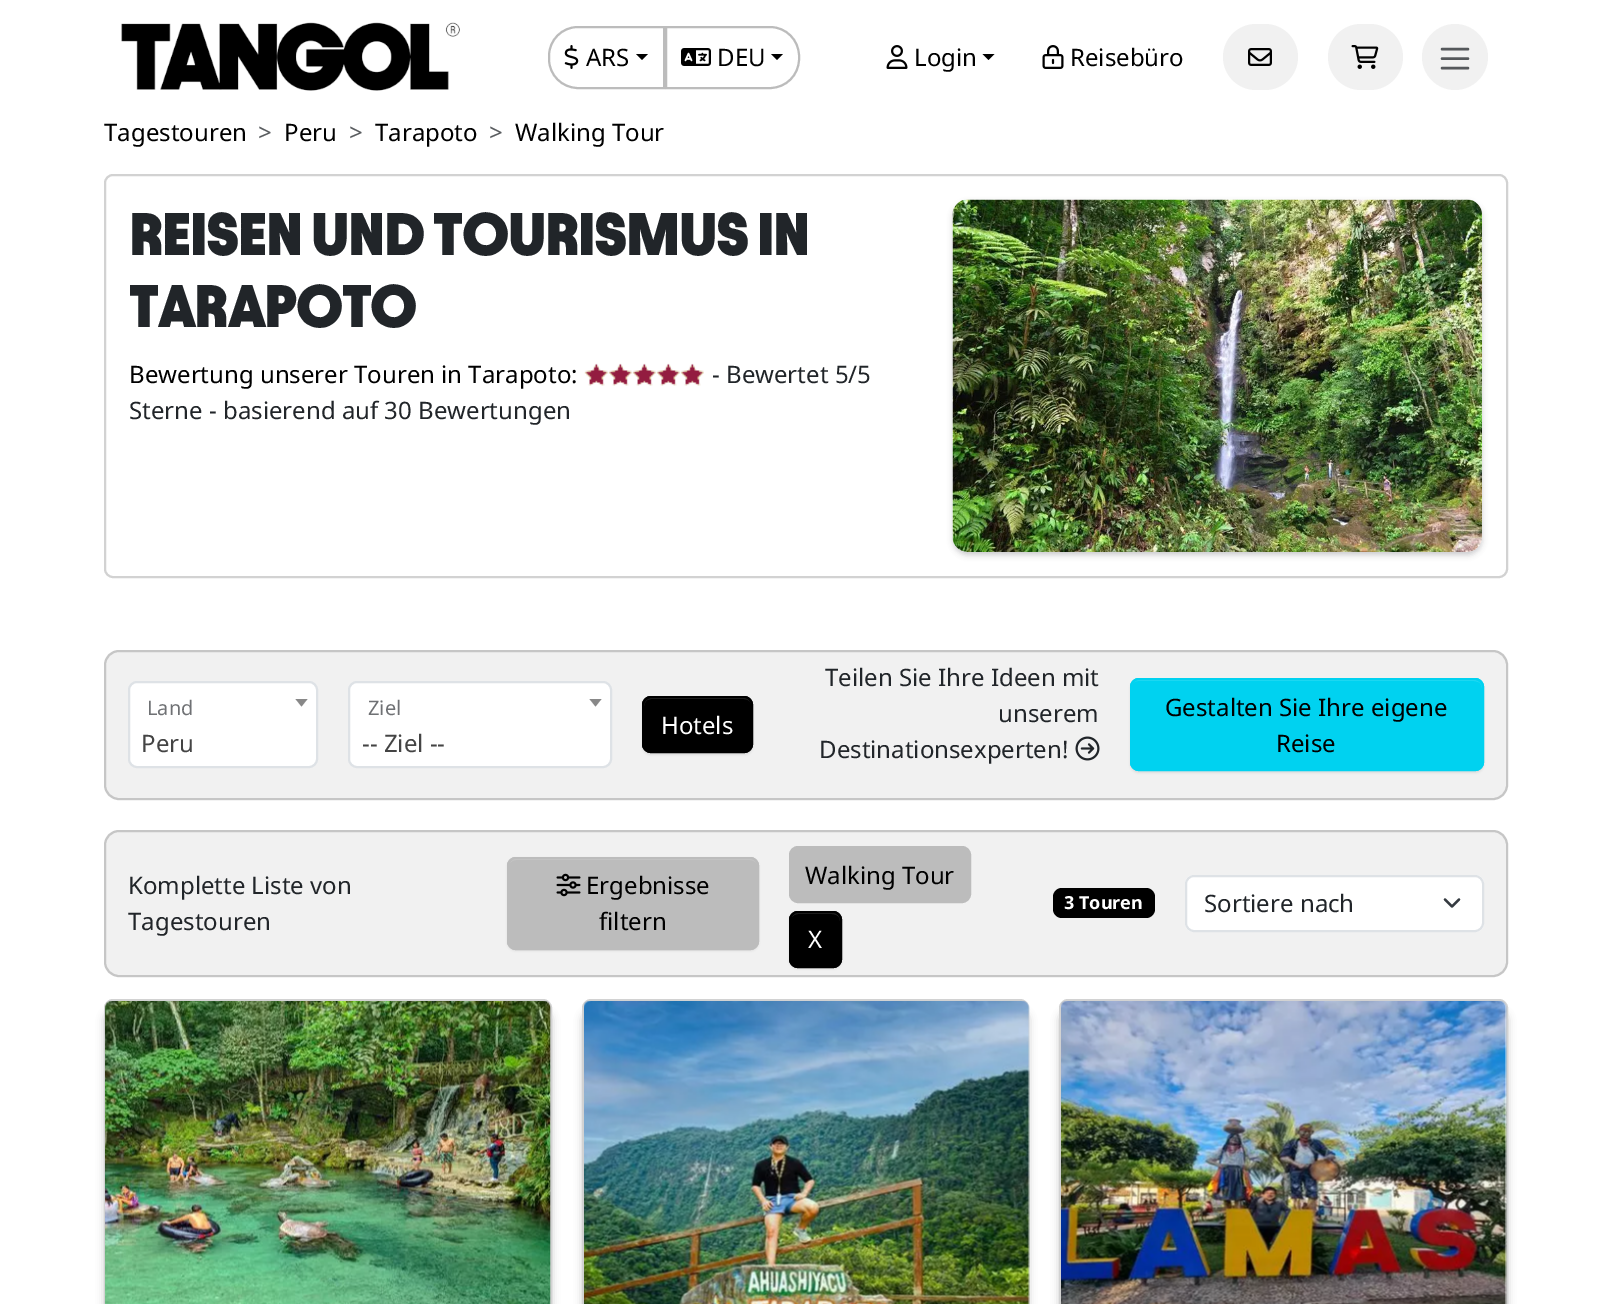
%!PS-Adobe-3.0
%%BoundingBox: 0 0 1610 1304
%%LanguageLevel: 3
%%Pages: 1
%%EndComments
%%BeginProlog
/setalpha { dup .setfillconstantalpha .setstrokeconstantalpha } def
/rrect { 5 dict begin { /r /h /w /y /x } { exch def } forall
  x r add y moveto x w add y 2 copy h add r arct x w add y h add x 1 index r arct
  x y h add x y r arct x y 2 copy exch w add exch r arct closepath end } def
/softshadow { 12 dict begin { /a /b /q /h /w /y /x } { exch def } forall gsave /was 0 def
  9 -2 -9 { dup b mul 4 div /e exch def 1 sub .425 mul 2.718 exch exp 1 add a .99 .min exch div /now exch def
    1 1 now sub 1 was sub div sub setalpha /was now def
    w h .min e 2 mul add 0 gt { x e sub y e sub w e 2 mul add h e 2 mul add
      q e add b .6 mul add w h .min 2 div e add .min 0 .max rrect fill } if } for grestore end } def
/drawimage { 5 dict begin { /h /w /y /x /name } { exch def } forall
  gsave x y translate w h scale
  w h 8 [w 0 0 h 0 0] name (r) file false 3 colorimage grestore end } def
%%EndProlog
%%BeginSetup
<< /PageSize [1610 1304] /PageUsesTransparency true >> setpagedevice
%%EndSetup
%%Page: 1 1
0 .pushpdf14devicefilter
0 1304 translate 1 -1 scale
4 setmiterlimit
1 setgray
0 0 1610 1304 rectfill
(images/1.raw) 121 22 339 69 drawimage
0.737 setgray
2 setlinewidth
newpath 578 27 moveto 664 27 lineto 664 88 lineto 578 88 lineto 562 88 549 75 549 59 curveto 549 56 lineto 549 40 562 27 578 27 curveto closepath stroke
(images/2.raw) 564 45 15 24 drawimage
0 setgray
newpath 636 54 moveto 648 54 lineto 642 60 lineto closepath fill
0.737 setgray
newpath 666 27 moveto 770 27 lineto 786 27 799 40 799 56 curveto 799 59 lineto 799 75 786 88 770 88 curveto 666 88 lineto closepath stroke
(images/3.raw) 681 48 30 18 drawimage
0 setgray
newpath 771 54 moveto 783 54 lineto 777 60 lineto closepath fill
(images/4.raw) 886 45 22 24 drawimage
newpath 982.5 54 moveto 994.5 54 lineto 988.5 60 lineto closepath fill
(images/5.raw) 1042 45 22 24 drawimage
0.945 setgray
1223 24 75 66 33 rrect fill
(images/6.raw) 1248 48 24 18 drawimage
1328 24 75 66 33 rrect fill
(images/7.raw) 1351 45 28 24 drawimage
newpath 1455 24 moveto 1437 24 1422 39 1422 57 curveto 1422 75 1437 90 1455 90 curveto 1473 90 1488 75 1488 57 curveto 1488 39 1473 24 1455 24 curveto closepath fill
0.333 0.345 0.357 setrgbcolor
2.4 setlinewidth
1 setlinecap
newpath 1442 49 moveto 1468 49 lineto 1442 58.5 moveto 1468 58.5 lineto 1442 68 moveto 1468 68 lineto stroke
0.824 setgray
2 setlinewidth
0 setlinecap
105 175 1402 402 8 rrect stroke
(images/8.raw) 584 363 120 23 drawimage
0.196 0.192 0.239 setrgbcolor
953 203 529 352 15 3 0.25 softshadow
(images/9.raw) 952 199 530 353 drawimage
0.945 setgray
104 650 1404 150 15 rrect fill
0.18 setalpha
0 setgray
105 651 1402 148 14 rrect stroke
1 setalpha
1 setgray
129 682 188 85 8 rrect gsave fill grestore
0.871 0.886 0.902 setrgbcolor
stroke
0.533 setgray
newpath 295.5 699 moveto 307.5 699 lineto 301.5 706.5 lineto closepath fill
1 setgray
349 682 262 85 8 rrect gsave fill grestore
0.871 0.886 0.902 setrgbcolor
stroke
0.533 setgray
newpath 589.5 699 moveto 601.5 699 lineto 595.5 706.5 lineto closepath fill
0 setgray
642 698 111 57 9 1 0.07 softshadow
642 696 111 57 9 rrect fill
0.149 setgray
newpath 651 699 moveto 744 699 lineto 748 699 752 702 752 706 curveto 752 702 748 698 744 698 curveto 652 698 lineto 648 698 644 702 644 706 curveto 644 702 647 699 651 699 curveto closepath fill
0 setgray
643 697 109 55 8 rrect stroke
(images/10.raw) 1075 736 25 25 drawimage
1130 680 354 93 9 1 0.07 softshadow
0 0.824 0.941 setrgbcolor
1130 678 354 93 9 rrect fill
0.149 0.851 0.949 setrgbcolor
newpath 1138 681 moveto 1474 681 lineto 1479 681 1482 684 1482 688 curveto 1482 684 1478 680 1474 680 curveto 1139 680 lineto 1135 680 1131 684 1131 688 curveto 1131 684 1134 681 1138 681 curveto closepath fill
0 0.824 0.941 setrgbcolor
1131 679 352 91 8 rrect stroke
0.945 setgray
104 830 1404 147 15 rrect fill
0.18 setalpha
0 setgray
105 831 1402 145 14 rrect stroke
1 setalpha
507 858 252 93 9 1 0.07 softshadow
0.737 setgray
507 857 252 93 9 rrect fill
0.776 setgray
newpath 516 860 moveto 750 860 lineto 754 860 758 863 758 867 curveto 758 866 lineto 758 862 754 858 750 858 curveto 517 858 lineto 514 858 511 860 510 863 curveto 511 861 514 860 516 860 curveto closepath fill
0.737 setgray
508 858 250 91 8 rrect stroke
(images/11.raw) 556 873 25 24 drawimage
790 847 180 55 8 rrect gsave fill grestore
stroke
0 setgray
789 912 53 57 9 1 0.07 softshadow
789 911 53 57 9 rrect fill
0.149 setgray
newpath 798 914 moveto 832 914 lineto 837 914 840 917 840 921 curveto 840 920 lineto 840 916 836 912 832 912 curveto 799 912 lineto 796 912 793 914 792 917 curveto 793 915 796 914 798 914 curveto closepath fill
0 setgray
790 912 51 55 8 rrect stroke
1053 888 102 30 9 rrect fill
1 setgray
1185 875 299 57 9 rrect fill
0.204 0.227 0.251 setrgbcolor
2.2 setlinewidth
1 setlinecap
1 setlinejoin
newpath 1445 899.5 moveto 1452 906.5 lineto 1459 899.5 lineto stroke
0.871 0.886 0.902 setrgbcolor
2 setlinewidth
0 setlinecap
0 setlinejoin
1186 876 297 55 8 rrect stroke
0 setgray
104 1011 448 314 9 4 0.2 softshadow
0.824 setgray
105 1000 446 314 8 rrect stroke
(images/12.raw) 105 1001 446 303 drawimage
0 setgray
582 1011 447 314 9 4 0.2 softshadow
0.824 setgray
583 1000 445 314 8 rrect stroke
(images/13.raw) 584 1001 446 303 drawimage
0 setgray
1059 1011 449 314 9 4 0.2 softshadow
1 setgray
1060 1000 447 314 8 rrect gsave fill grestore
0.824 setgray
stroke
(images/14.raw) 1061 1001 446 303 drawimage
/NotoSans-Regular [24 0 0 -24 0 0] selectfont
0 setgray
586 66 moveto (ARS) show
717 66 moveto (DEU) show
914 66 moveto (Login) show
1070 66 moveto (Reisebüro) show
104 141 moveto (Tagestouren) show
0.349 0.361 0.373 setrgbcolor
258 141 moveto (>) show
0 setgray
284 141 moveto (Peru) show
0.349 0.361 0.373 setrgbcolor
349 141 moveto (>) show
0 setgray
375 141 moveto (Tarapoto) show
0.349 0.361 0.373 setrgbcolor
489 141 moveto (>) show
0 setgray
515 141 moveto (Walking Tour) show
/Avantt-Black [60 0 0 -60 0 0] selectfont
0.129 0.145 0.161 setrgbcolor
129 255 moveto -1.5 0 (REISEN UND TOURISMUS IN) ashow
129 327 moveto -1.5 0 (TARAPOTO) ashow
/NotoSans-Regular [24 0 0 -24 0 0] selectfont
0 setgray
129 383 moveto (Bewertung unserer Touren in Tarapoto:) show
0.129 0.145 0.161 setrgbcolor
712 383 moveto (- Bewertet 5/5) show
129 419 moveto (Sterne - basierend auf 30 Bewertungen) show
/NotoSans-Regular [20 0 0 -20 0 0] selectfont
0.435 0.443 0.455 setrgbcolor
147 715 moveto (Land) show
/NotoSans-Regular [24 0 0 -24 0 0] selectfont
0.267 setgray
141 752 moveto (Peru) show
/NotoSans-Regular [20 0 0 -20 0 0] selectfont
0.435 0.443 0.455 setrgbcolor
368 715 moveto (Ziel) show
/NotoSans-Regular [24 0 0 -24 0 0] selectfont
0.267 setgray
362 752 moveto (-- Ziel --) show
1 setgray
661 734 moveto (Hotels) show
0.129 0.145 0.161 setrgbcolor
825 686 moveto (Teilen Sie Ihre Ideen mit) show
998 722 moveto (unserem) show
819 758 moveto (Destinationsexperten!) show
0 setgray
1165 716 moveto (Gestalten Sie Ihre eigene) show
1276 752 moveto (Reise) show
0.129 0.145 0.161 setrgbcolor
128 894 moveto (Komplette Liste von) show
128 930 moveto (Tagestouren) show
0 setgray
586 894 moveto (Ergebnisse) show
599 930 moveto (filtern) show
805 884 moveto (Walking Tour) show
1 setgray
808 948 moveto (X) show
/NotoSans-Bold [18 0 0 -18 0 0] selectfont
1064 909 moveto (3 Touren) show
/NotoSans-Regular [24 0 0 -24 0 0] selectfont
0.129 0.145 0.161 setrgbcolor
1204 912 moveto (Sortiere nach) show
.poppdf14devicefilter showpage
%%EOF
